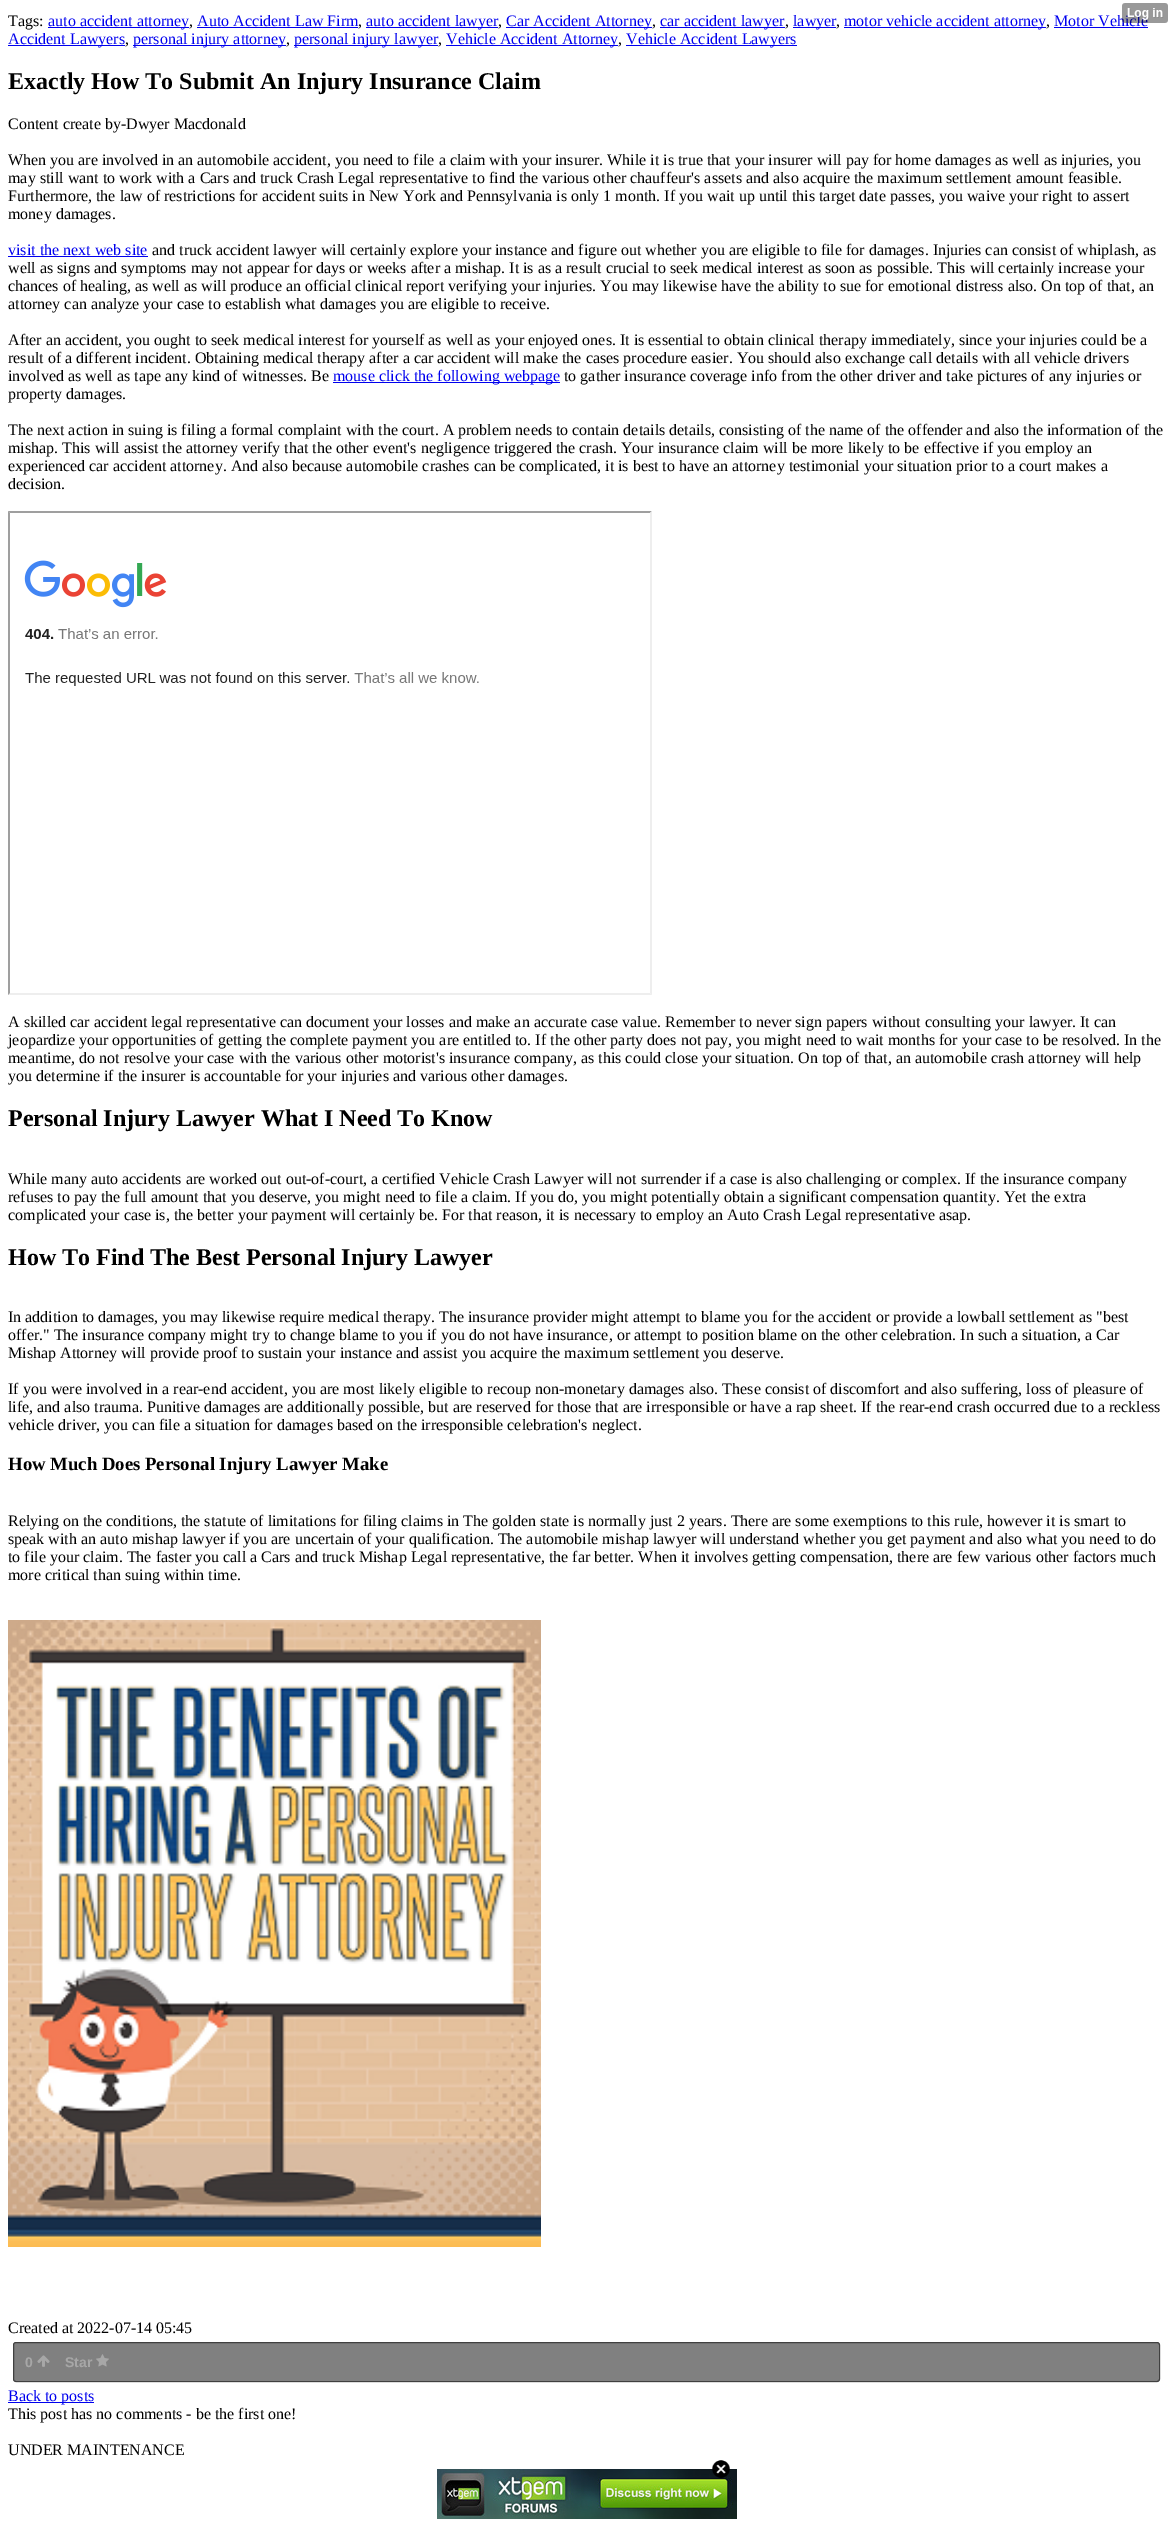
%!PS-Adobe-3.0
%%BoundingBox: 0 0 1173 2530
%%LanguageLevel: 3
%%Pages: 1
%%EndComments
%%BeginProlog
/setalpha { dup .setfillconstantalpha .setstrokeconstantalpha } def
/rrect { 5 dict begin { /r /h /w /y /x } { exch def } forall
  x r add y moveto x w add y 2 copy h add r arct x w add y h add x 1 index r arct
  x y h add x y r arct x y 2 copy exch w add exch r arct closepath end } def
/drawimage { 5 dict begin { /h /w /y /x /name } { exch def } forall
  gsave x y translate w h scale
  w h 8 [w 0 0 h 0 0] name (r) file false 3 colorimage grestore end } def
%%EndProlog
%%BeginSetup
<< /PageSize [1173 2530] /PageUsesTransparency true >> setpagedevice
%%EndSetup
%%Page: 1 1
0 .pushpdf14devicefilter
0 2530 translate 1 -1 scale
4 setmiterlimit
1 setgray
0 0 1173 2530 rectfill
0 0 0.933 setrgbcolor
48 27 141 1 rectfill
197 27 161 1 rectfill
366 27 132 1 rectfill
506 27 146 1 rectfill
660 27 125 1 rectfill
793 27 43 1 rectfill
844 27 202 1 rectfill
1054 27 94 1 rectfill
8 45 117 1 rectfill
133 45 153 1 rectfill
294 45 144 1 rectfill
446 45 172 1 rectfill
626 45 171 1 rectfill
8 256 140 1 rectfill
333 382 227 1 rectfill
0.624 setgray
newpath 8 511 moveto 652 511 lineto 650 513 lineto 10 513 lineto closepath fill
0.933 setgray
newpath 652 511 moveto 652 995 lineto 650 993 lineto 650 513 lineto closepath fill
newpath 652 995 moveto 8 995 lineto 10 993 lineto 650 993 lineto closepath fill
0.624 setgray
newpath 8 995 moveto 8 511 lineto 10 513 lineto 10 993 lineto closepath fill
(images/2.raw) 24 560 455 126 drawimage
(images/3.raw) 8 1620 533 627 drawimage
0.502 setgray
13 2342 1147 40 3 rrect fill
0.5 setalpha
0 setgray
13.5 2342.5 1146 39 2.5 rrect stroke
1 setalpha
(images/4.raw) 37 2355 13 12 drawimage
(images/5.raw) 96 2354 13 13 drawimage
0 0 0.933 setrgbcolor
8 2402 86 1 rectfill
(images/7.raw) 437 2469 300 50 drawimage
(images/6.raw) 712 2460 18 18 drawimage
/LiberationSerif-Regular [16 0 0 -16 0 0] selectfont
0 setgray
8 26 moveto (Tags:) show
0 0 0.933 setrgbcolor
48 26 moveto (auto accident attorney) show
0 setgray
189 26 moveto (,) show
0 0 0.933 setrgbcolor
197 26 moveto (Auto Accident Law Firm) show
0 setgray
358 26 moveto (,) show
0 0 0.933 setrgbcolor
366 26 moveto (auto accident lawyer) show
0 setgray
498 26 moveto (,) show
0 0 0.933 setrgbcolor
506 26 moveto (Car Accident Attorney) show
0 setgray
652 26 moveto (,) show
0 0 0.933 setrgbcolor
660 26 moveto (car accident lawyer) show
0 setgray
785 26 moveto (,) show
0 0 0.933 setrgbcolor
793 26 moveto (lawyer) show
0 setgray
836 26 moveto (,) show
0 0 0.933 setrgbcolor
844 26 moveto (motor vehicle accident attorney) show
0 setgray
1046 26 moveto (,) show
0 0 0.933 setrgbcolor
1054 26 moveto (Motor Vehicle) show
(images/1.raw) 1122 3 46 20 drawimage
8 44 moveto (Accident Lawyers) show
0 setgray
125 44 moveto (,) show
0 0 0.933 setrgbcolor
133 44 moveto (personal injury attorney) show
0 setgray
286 44 moveto (,) show
0 0 0.933 setrgbcolor
294 44 moveto (personal injury lawyer) show
0 setgray
438 44 moveto (,) show
0 0 0.933 setrgbcolor
446 44 moveto (Vehicle Accident Attorney) show
0 setgray
618 44 moveto (,) show
0 0 0.933 setrgbcolor
626 44 moveto (Vehicle Accident Lawyers) show
/LiberationSerif-Bold [24 0 0 -24 0 0] selectfont
0 setgray
8 89 moveto (Exactly How To Submit An Injury Insurance Claim) show
/LiberationSerif-Regular [16 0 0 -16 0 0] selectfont
8 129 moveto (Content create by-Dwyer Macdonald) show
8 165 moveto (When you are involved in an automobile accident, you need to file a claim with your insurer. While it is true that your insurer will pay for home damages as well as injuries, you) show
8 183 moveto (may still want to work with a Cars and truck Crash Legal representative to find the various other chauffeur's assets and also acquire the maximum settlement amount feasible.) show
8 201 moveto (Furthermore, the law of restrictions for accident suits in New York and Pennsylvania is only 1 month. If you wait up until this target date passes, you waive your right to assert) show
8 219 moveto (money damages.) show
0 0 0.933 setrgbcolor
8 255 moveto (visit the next web site) show
0 setgray
152 255 moveto (and truck accident lawyer will certainly explore your instance and figure out whether you are eligible to file for damages. Injuries can consist of whiplash, as) show
8 273 moveto (well as signs and symptoms may not appear for days or weeks after a mishap. It is as a result crucial to seek medical interest as soon as possible. This will certainly increase your) show
8 291 moveto (chances of healing, as well as will produce an official clinical report verifying your injuries. You may likewise have the ability to sue for emotional distress also. On top of that, an) show
8 309 moveto (attorney can analyze your case to establish what damages you are eligible to receive.) show
8 345 moveto (After an accident, you ought to seek medical interest for yourself as well as your enjoyed ones. It is essential to obtain clinical therapy immediately, since your injuries could be a) show
8 363 moveto (result of a different incident. Obtaining medical therapy after a car accident will make the cases procedure easier. You should also exchange call details with all vehicle drivers) show
8 381 moveto (involved as well as tape any kind of witnesses. Be) show
0 0 0.933 setrgbcolor
333 381 moveto (mouse click the following webpage) show
0 setgray
564 381 moveto (to gather insurance coverage info from the other driver and take pictures of any injuries or) show
8 399 moveto (property damages.) show
8 435 moveto (The next action in suing is filing a formal complaint with the court. A problem needs to contain details details, consisting of the name of the offender and also the information of the) show
8 453 moveto (mishap. This will assist the attorney verify that the other event's negligence triggered the crash. Your insurance claim will be more likely to be effective if you employ an) show
8 471 moveto (experienced car accident attorney. And also because automobile crashes can be complicated, it is best to have an attorney testimonial your situation prior to a court makes a) show
8 489 moveto (decision.) show
8 1027 moveto (A skilled car accident legal representative can document your losses and make an accurate case value. Remember to never sign papers without consulting your lawyer. It can) show
8 1045 moveto (jeopardize your opportunities of getting the complete payment you are entitled to. If the other party does not pay, you might need to wait months for your case to be resolved. In the) show
8 1063 moveto (meantime, do not resolve your case with the various other motorist's insurance company, as this could close your situation. On top of that, an automobile crash attorney will help) show
8 1081 moveto (you determine if the insurer is accountable for your injuries and various other damages.) show
/LiberationSerif-Bold [24 0 0 -24 0 0] selectfont
8 1126 moveto (Personal Injury Lawyer What I Need To Know) show
/LiberationSerif-Regular [16 0 0 -16 0 0] selectfont
8 1184 moveto (While many auto accidents are worked out out-of-court, a certified Vehicle Crash Lawyer will not surrender if a case is also challenging or complex. If the insurance company) show
8 1202 moveto (refuses to pay the full amount that you deserve, you might need to file a claim. If you do, you might potentially obtain a significant compensation quantity. Yet the extra) show
8 1220 moveto (complicated your case is, the better your payment will certainly be. For that reason, it is necessary to employ an Auto Crash Legal representative asap.) show
/LiberationSerif-Bold [24 0 0 -24 0 0] selectfont
8 1265 moveto (How To Find The Best Personal Injury Lawyer) show
/LiberationSerif-Regular [16 0 0 -16 0 0] selectfont
8 1322 moveto (In addition to damages, you may likewise require medical therapy. The insurance provider might attempt to blame you for the accident or provide a lowball settlement as "best) show
8 1340 moveto (offer." The insurance company might try to change blame to you if you do not have insurance, or attempt to position blame on the other celebration. In such a situation, a Car) show
8 1358 moveto (Mishap Attorney will provide proof to sustain your instance and assist you acquire the maximum settlement you deserve.) show
8 1394 moveto (If you were involved in a rear-end accident, you are most likely eligible to recoup non-monetary damages also. These consist of discomfort and also suffering, loss of pleasure of) show
8 1412 moveto (life, and also trauma. Punitive damages are additionally possible, but are reserved for those that are irresponsible or have a rap sheet. If the rear-end crash occurred due to a reckless) show
8 1430 moveto (vehicle driver, you can file a situation for damages based on the irresponsible celebration's neglect.) show
/LiberationSerif-Bold [18.75 0 0 -18.75 0 0] selectfont
8 1470 moveto (How Much Does Personal Injury Lawyer Make) show
/LiberationSerif-Regular [16 0 0 -16 0 0] selectfont
8 1526 moveto (Relying on the conditions, the statute of limitations for filing claims in The golden state is normally just 2 years. There are some exemptions to this rule, however it is smart to) show
8 1544 moveto (speak with an auto mishap lawyer if you are uncertain of your qualification. The automobile mishap lawyer will understand whether you get payment and also what you need to do) show
8 1562 moveto (to file your claim. The faster you call a Cars and truck Mishap Legal representative, the far better. When it involves getting compensation, there are few various other factors much) show
8 1580 moveto (more critical than suing within time.) show
8 2333 moveto (Created at 2022-07-14 05:45) show
/LiberationSans-Bold [14 0 0 -14 0 0] selectfont
0.655 setgray
25 2367 moveto (0) show
65 2367 moveto (Star) show
/LiberationSerif-Regular [16 0 0 -16 0 0] selectfont
0 0 0.933 setrgbcolor
8 2401 moveto (Back to posts) show
0 setgray
8 2419 moveto (This post has no comments - be the first one!) show
8 2455 moveto (UNDER MAINTENANCE) show
.poppdf14devicefilter showpage
%%EOF
